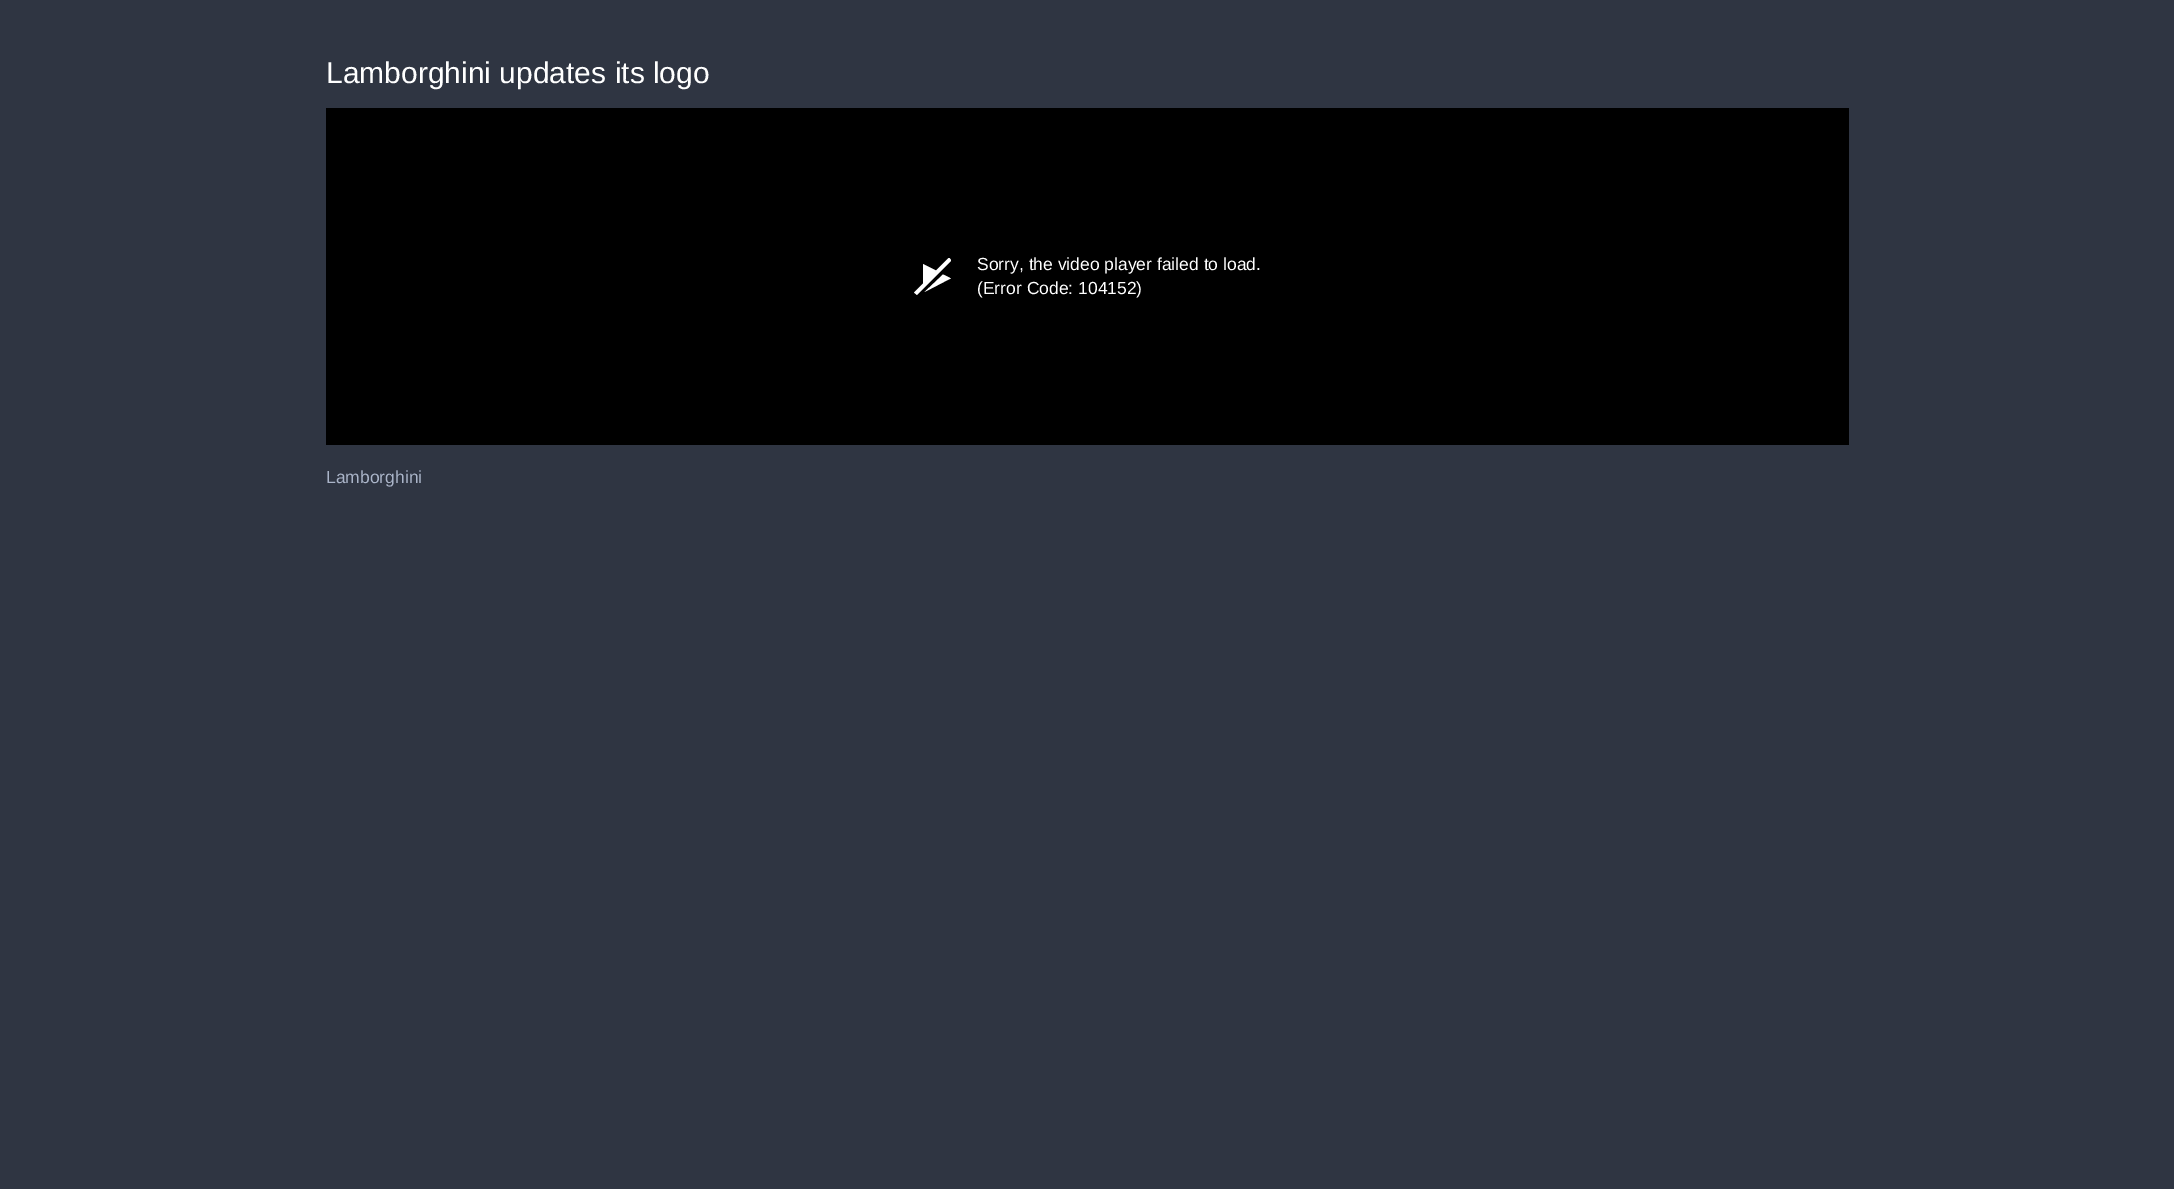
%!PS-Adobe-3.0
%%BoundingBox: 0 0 2174 1189
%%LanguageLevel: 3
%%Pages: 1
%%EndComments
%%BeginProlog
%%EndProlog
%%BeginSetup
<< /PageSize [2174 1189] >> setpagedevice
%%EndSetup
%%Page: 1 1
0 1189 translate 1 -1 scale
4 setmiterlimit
0.184 0.208 0.259 setrgbcolor
0 0 2174 1189 rectfill
0 setgray
326 108 1523 337 rectfill
gsave
914 258 37 37 rectclip
1 setgray
newpath 950.5 278.5 moveto 924.5 292 lineto 943 274.5 lineto 950 278 951.5 278.5 950.5 279 curveto closepath 949 257.5 moveto 936 270.5 lineto 923 264 lineto 923 283.5 lineto 914 292.5 lineto 917 295 lineto 951.5 260.5 lineto closepath fill
grestore
/LiberationSans-Regular [30 0 0 -30 0 0] selectfont
1 setgray
326 83 moveto (Lamborghini updates its logo) show
/LiberationSans-Regular [17.5 0 0 -17.5 0 0] selectfont
977 270 moveto (Sorry, the video player failed to load.) show
977 294 moveto (\(Error Code: 104152\)) show
0.667 0.706 0.784 setrgbcolor
326 483 moveto (Lamborghini) show
showpage
%%EOF
